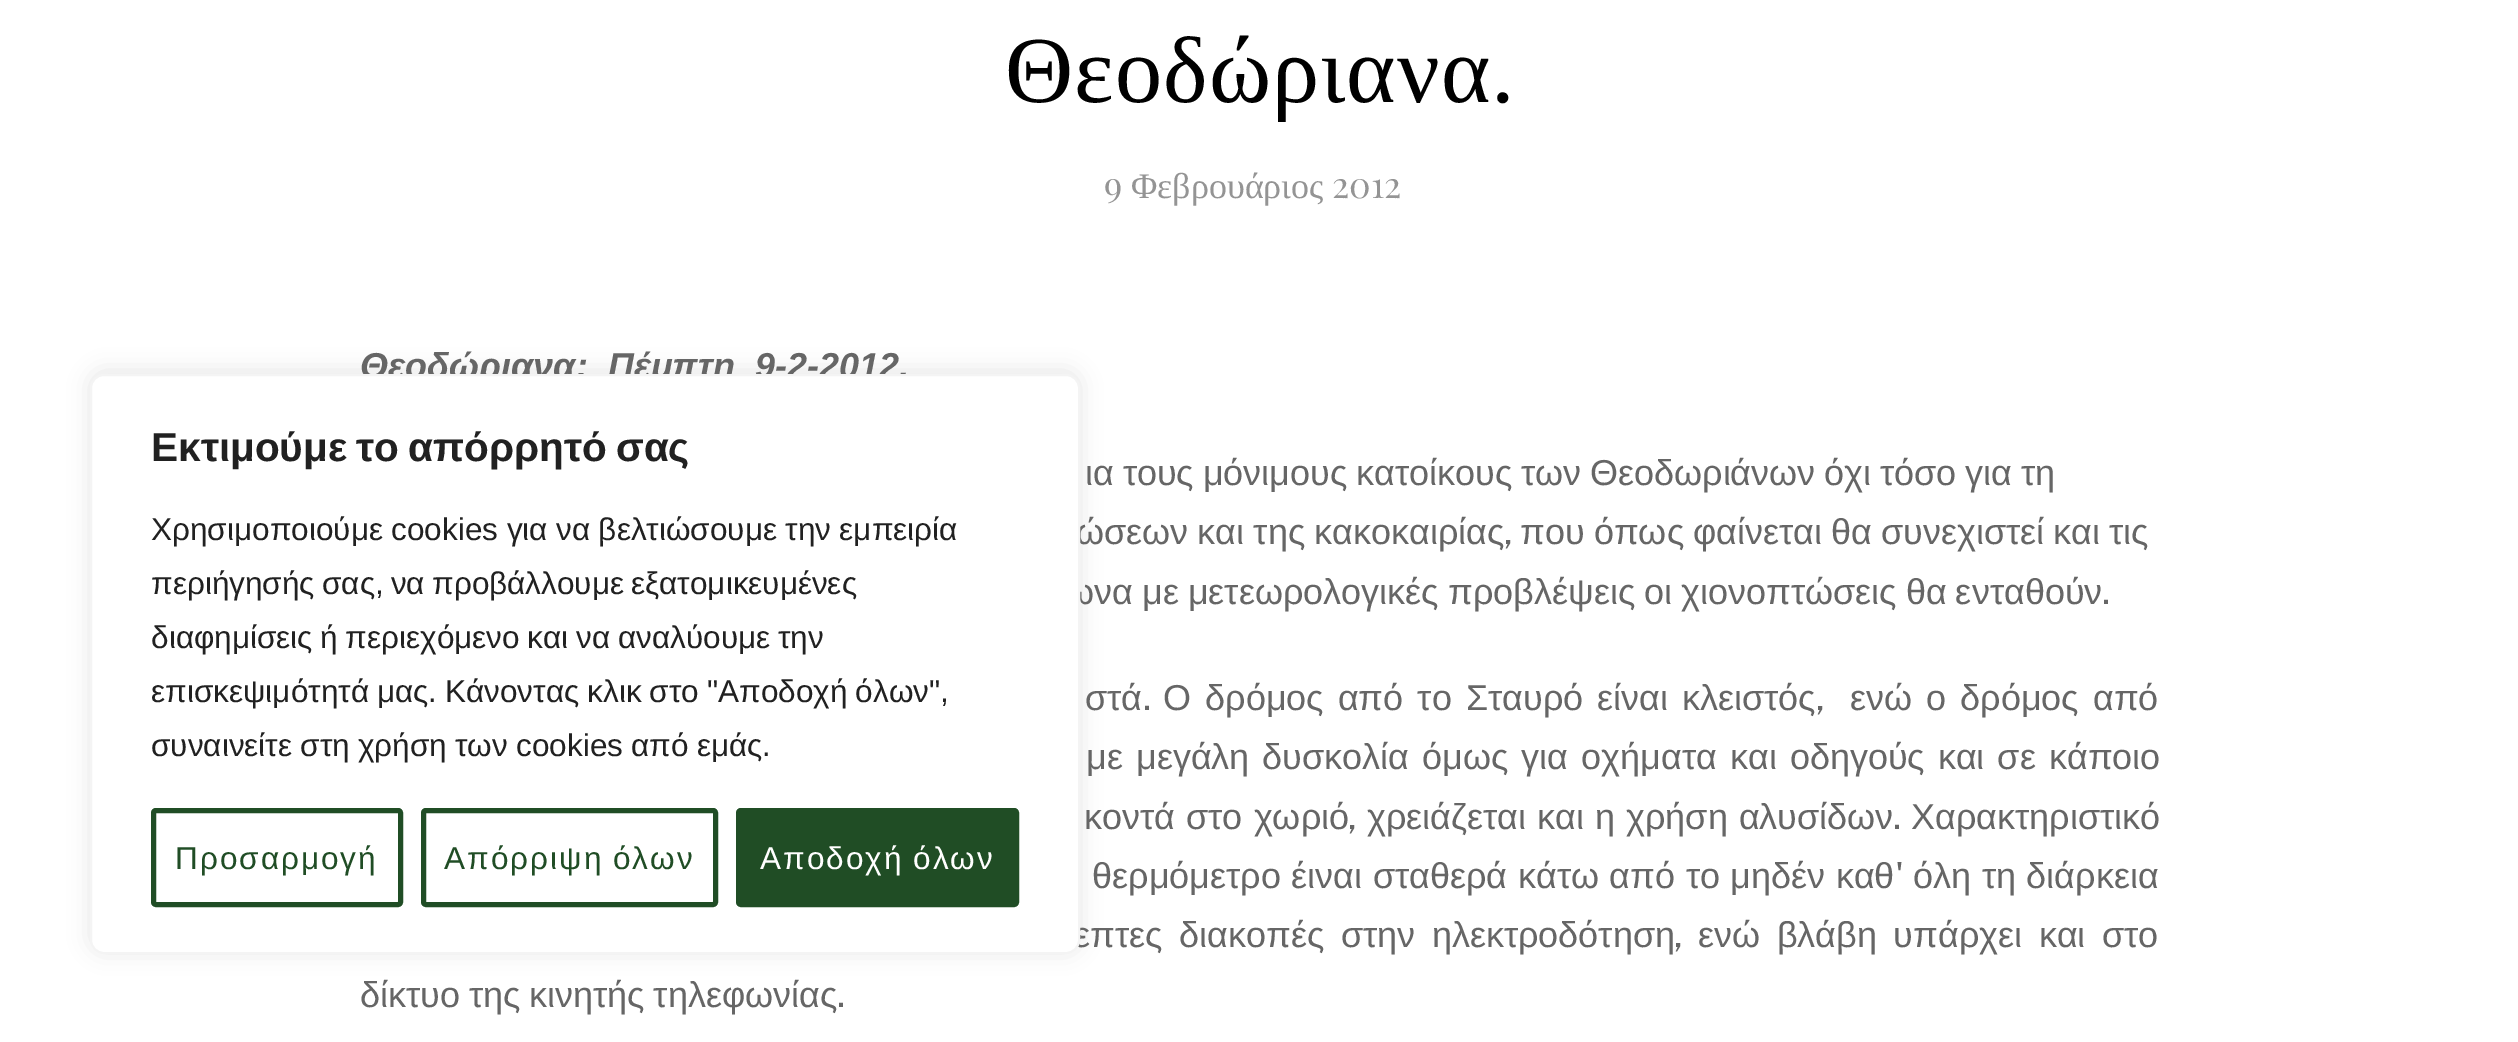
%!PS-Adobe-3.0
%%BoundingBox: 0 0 2518 1042
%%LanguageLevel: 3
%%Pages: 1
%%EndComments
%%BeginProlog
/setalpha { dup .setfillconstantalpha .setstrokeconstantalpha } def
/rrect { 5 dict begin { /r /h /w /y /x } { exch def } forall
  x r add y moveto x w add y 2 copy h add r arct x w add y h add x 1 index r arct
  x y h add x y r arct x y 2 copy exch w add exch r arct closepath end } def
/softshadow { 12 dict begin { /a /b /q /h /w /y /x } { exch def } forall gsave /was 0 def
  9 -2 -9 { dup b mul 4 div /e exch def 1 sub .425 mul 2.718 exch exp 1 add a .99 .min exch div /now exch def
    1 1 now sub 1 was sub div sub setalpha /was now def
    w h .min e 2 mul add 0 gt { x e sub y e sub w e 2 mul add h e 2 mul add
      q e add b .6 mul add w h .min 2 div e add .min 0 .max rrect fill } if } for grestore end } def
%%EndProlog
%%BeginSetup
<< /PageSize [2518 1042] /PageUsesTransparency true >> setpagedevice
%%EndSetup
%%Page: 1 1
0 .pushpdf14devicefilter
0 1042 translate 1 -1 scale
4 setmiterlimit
1 setgray
0 0 2518 1042 rectfill
0.675 0.671 0.671 setrgbcolor
90 371 990 581 14 11 0.3 softshadow
/LiberationSerif-Regular [94.5 0 0 -94.5 0 0] selectfont
0 setgray
1005 102 moveto 1 0 (Θεοδώριανα.) ashow
/PlayfairDisplay-Regular [36 0 0 -36 0 0] selectfont
0.58 setgray
1104 198 moveto (9) show
/LiberationSerif-Regular [36 0 0 -36 0 0] selectfont
1131 198 moveto (Φεβρουάριος) show
/PlayfairDisplay-Regular [36 0 0 -36 0 0] selectfont
1332 198 moveto (2012) show
/LiberationSans-BoldItalic [36 0 0 -36 0 0] selectfont
0.4 setgray
360 378 moveto (Θεοδώριανα:  Πέμπτη  9-2-2012.) show
/LiberationSans-Regular [36 0 0 -36 0 0] selectfont
1085 485 moveto -1.25 0 32 (ια τους μόνιμους κατοίκους των Θεοδωριάνων όχι τόσο για τη) widthshow
1076 544 moveto -1 0 32 (ώσεων και της κακοκαιρίας) widthshow
/PublicSans-Regular [36 0 0 -36 0 0] selectfont
1504 544 moveto (,) show
/LiberationSans-Regular [36 0 0 -36 0 0] selectfont
1520 544 moveto -1 0 32 (που όπως φαίνεται θα συνεχιστεί και τις) widthshow
1066 604 moveto -1 0 32 (ωνα με μετεωρολογικές προβλέψεις οι χιονοπτώσεις θα ενταθούν) widthshow
/PublicSans-Regular [36 0 0 -36 0 0] selectfont
2102 604 moveto (.) show
/LiberationSans-Regular [36 0 0 -36 0 0] selectfont
1085 710 moveto (στά) show
/PublicSans-Regular [36 0 0 -36 0 0] selectfont
1143 710 moveto (.) show
/LiberationSans-Regular [36 0 0 -36 0 0] selectfont
1163 710 moveto 4 0 32 (Ο δρόμος από το Σταυρό είναι κλειστός) widthshow
/PublicSans-Regular [36 0 0 -36 0 0] selectfont
1816 710 moveto (,) show
/LiberationSans-Regular [36 0 0 -36 0 0] selectfont
1850 710 moveto 4 0 32 (ενώ ο δρόμος από) widthshow
1086 769 moveto 3 0 32 (με μεγάλη δυσκολία όμως για οχήματα και οδηγούς και σε κάποιο) widthshow
1084 829 moveto 1 0 32 (κοντά στο χωριό) widthshow
/PublicSans-Regular [36 0 0 -36 0 0] selectfont
1348 829 moveto (,) show
/LiberationSans-Regular [36 0 0 -36 0 0] selectfont
1367 829 moveto 1 0 32 (χρειάζεται και η χρήση αλυσίδων) widthshow
/PublicSans-Regular [36 0 0 -36 0 0] selectfont
1893 829 moveto (.) show
/LiberationSans-Regular [36 0 0 -36 0 0] selectfont
1911 829 moveto (Χαρακτηριστικό) show
1092 888 moveto 0.5 0 32 (θερμόμετρο έιναι σταθερά κάτω από το μηδέν καθ) widthshow
/PublicSans-Regular [36 0 0 -36 0 0] selectfont
1895 888 moveto (') show
/LiberationSans-Regular [36 0 0 -36 0 0] selectfont
1913 888 moveto 0.5 0 32 (όλη τη διάρκεια) widthshow
1074 947 moveto 6.5 0 32 (επτες διακοπές στην ηλεκτροδότηση) widthshow
/PublicSans-Regular [36 0 0 -36 0 0] selectfont
1674 947 moveto (,) show
/LiberationSans-Regular [36 0 0 -36 0 0] selectfont
1698 947 moveto 6.5 0 32 (ενώ βλάβη υπάρχει και στο) widthshow
360 1007 moveto -1.25 0 32 (δίκτυο της κινητής τηλεφωνίας) widthshow
/PublicSans-Regular [36 0 0 -36 0 0] selectfont
837 1007 moveto (.) show
1 setgray
91 375 988 578 13 rrect gsave fill grestore
0.957 setgray
2 setlinewidth
stroke
/LiberationSans-Bold [40.5 0 0 -40.5 0 0] selectfont
0.129 setgray
151 461 moveto -2 0 32 (Εκτιμούμε το απόρρητό σας) widthshow
/LiberationSans-Regular [31.5 0 0 -31.5 0 0] selectfont
151 540 moveto -0.25 0 32 (Χρησιμοποιούμε cookies για να βελτιώσουμε την εμπειρία) widthshow
151 594 moveto -1.5 0 32 (περιήγησής σας, να προβάλλουμε εξατομικευμένες) widthshow
151 648 moveto -1 0 32 (διαφημίσεις ή περιεχόμενο και να αναλύουμε την) widthshow
151 702 moveto -0.75 0 32 (επισκεψιμότητά μας. Κάνοντας κλικ στο "Αποδοχή όλων",) widthshow
151 756 moveto -0.5 0 32 (συναινείτε στη χρήση των cookies από εμάς.) widthshow
0.125 0.302 0.145 setrgbcolor
5 setlinewidth
153.5 810.5 247 94 2.5 rrect stroke
175 869 moveto 2 0 (Προσαρμογή) ashow
423.5 810.5 292 94 2.5 rrect stroke
444 869 moveto -1 0 32 2 0 (Απόρριψη όλων) awidthshow
738.5 810.5 278 94 2.5 rrect gsave fill grestore
stroke
1 setgray
760 869 moveto -1 0 32 2 0 (Αποδοχή όλων) awidthshow
.poppdf14devicefilter showpage
%%EOF
